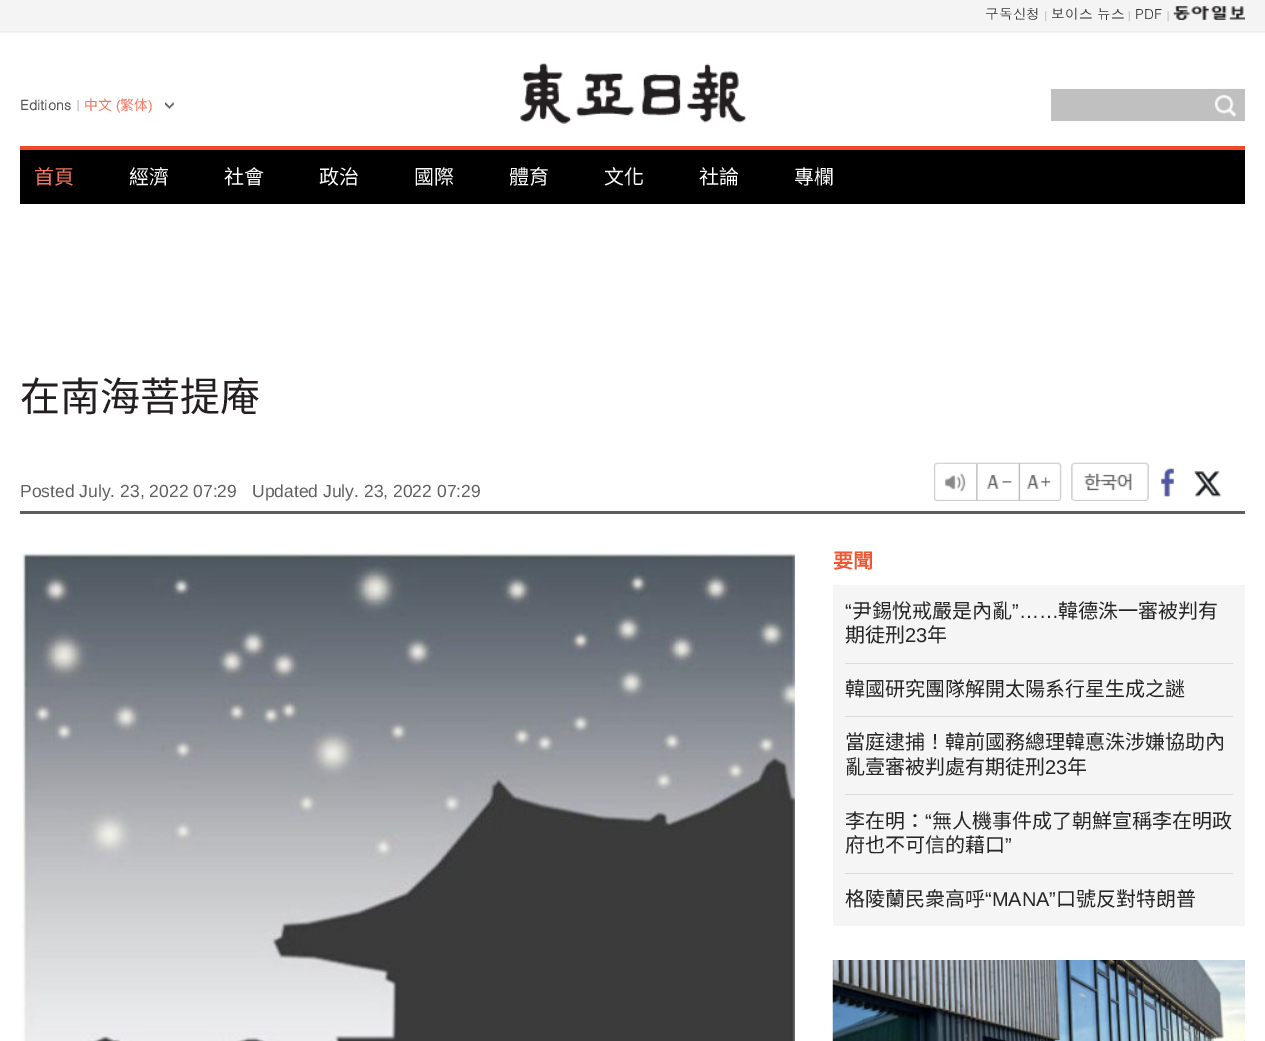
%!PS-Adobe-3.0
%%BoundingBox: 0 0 1265 1041
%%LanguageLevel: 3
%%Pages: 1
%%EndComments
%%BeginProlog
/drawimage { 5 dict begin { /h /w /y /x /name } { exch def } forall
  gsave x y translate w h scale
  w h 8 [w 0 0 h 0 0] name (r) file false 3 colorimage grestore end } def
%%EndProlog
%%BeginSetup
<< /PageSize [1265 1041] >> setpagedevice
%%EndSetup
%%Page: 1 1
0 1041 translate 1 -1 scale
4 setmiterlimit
1 setgray
0 0 1265 1041 rectfill
0.957 setgray
0 0 1265 33 rectfill
0.933 setgray
0 31 1265 1 rectfill
(images/1.raw) 1045 11 2 11 drawimage
(images/2.raw) 1128 11 2 11 drawimage
(images/3.raw) 1167 11 2 11 drawimage
(images/4.raw) 1173 6 72 14 drawimage
(images/5.raw) 77 100 2 12 drawimage
(images/6.raw) 165 102 9 7 drawimage
(images/7.raw) 520 63 227 61 drawimage
0.753 setgray
1051 89 154 32 rectfill
(images/8.raw) 1205 88 40 34 drawimage
0 setgray
20 150 1225 54 rectfill
0.937 0.29 0.141 setrgbcolor
20 146 1225 4 rectfill
0.369 0.365 0.365 setrgbcolor
20 511 1225 3 rectfill
(images/9.raw) 934 462 43 39 drawimage
(images/10.raw) 976 462 44 39 drawimage
(images/11.raw) 1020 462 42 39 drawimage
(images/12.raw) 1071 462 78 39 drawimage
(images/13.raw) 1161 468 13 29 drawimage
(images/14.raw) 1193 471 29 26 drawimage
(images/15.raw) 20 551 775 490 drawimage
0.961 setgray
833 585 412 341 rectfill
0.859 setgray
845 663 388 1 rectfill
845 716 388 1 rectfill
845 794 388 1 rectfill
845 873 388 1 rectfill
(images/16.raw) 832 960 413 81 drawimage
/Dotum-Regular [13.75 0 0 -13.75 0 0] selectfont
0.2 setgray
985 19 moveto (구독신청) show
1051 19 moveto (보이스 뉴스) show
1135 19 moveto (PDF) show
/Dotum-Bold [13.75 0 0 -13.75 0 0] selectfont
0.341 setgray
20 110 moveto (Editions) show
/NotoSansCJKTC-Regular [13.75 0 0 -13.75 0 0] selectfont
0.969 0.463 0.376 setrgbcolor
84 110 moveto (中文) show
/LiberationSans-Regular [13.75 0 0 -13.75 0 0] selectfont
116 110 moveto (\() show
/NotoSansCJKTC-Regular [13.75 0 0 -13.75 0 0] selectfont
120 110 moveto (繁体) show
/LiberationSans-Regular [13.75 0 0 -13.75 0 0] selectfont
148 110 moveto (\)) show
/NotoSansCJKTC-Regular [20 0 0 -20 0 0] selectfont
34 184 moveto (首頁) show
1 setgray
129 184 moveto (經濟) show
224 184 moveto (社會) show
319 184 moveto (政治) show
414 184 moveto (國際) show
509 184 moveto (體育) show
604 184 moveto (文化) show
699 184 moveto (社論) show
794 184 moveto (專欄) show
/NotoSansCJKTC-Regular [40 0 0 -40 0 0] selectfont
0.137 0.122 0.125 setrgbcolor
20 411 moveto (在南海菩提庵) show
/LiberationSans-Regular [17.5 0 0 -17.5 0 0] selectfont
0.376 setgray
20 497 moveto (Posted July. 23, 2022 07:29) show
252 497 moveto (Updated July. 23, 2022 07:29) show
/NotoSansCJKTC-Bold [20 0 0 -20 0 0] selectfont
0.949 0.329 0.188 setrgbcolor
833 568 moveto (要聞) show
/LiberationSans-Regular [20 0 0 -20 0 0] selectfont
0.145 setgray
845 618 moveto (“) show
/NotoSansCJKTC-Regular [20 0 0 -20 0 0] selectfont
852 618 moveto (尹錫悅戒嚴是內亂) show
/LiberationSans-Regular [20 0 0 -20 0 0] selectfont
1012 618 moveto (”……) show
/NotoSansCJKTC-Regular [20 0 0 -20 0 0] selectfont
1058 618 moveto (韓德洙一審被判有) show
845 642 moveto (期徒刑) show
/LiberationSans-Regular [20 0 0 -20 0 0] selectfont
905 642 moveto (23) show
/NotoSansCJKTC-Regular [20 0 0 -20 0 0] selectfont
927 642 moveto (年) show
845 696 moveto (韓國研究團隊解開太陽系行星生成之謎) show
845 749 moveto (當庭逮捕！韓前國務總理韓悳洙涉嫌協助內) show
845 774 moveto (亂壹審被判處有期徒刑) show
/LiberationSans-Regular [20 0 0 -20 0 0] selectfont
1045 774 moveto (23) show
/NotoSansCJKTC-Regular [20 0 0 -20 0 0] selectfont
1067 774 moveto (年) show
845 828 moveto (李在明：) show
/LiberationSans-Regular [20 0 0 -20 0 0] selectfont
925 828 moveto (“) show
/NotoSansCJKTC-Regular [20 0 0 -20 0 0] selectfont
932 828 moveto (無人機事件成了朝鮮宣稱李在明政) show
845 852 moveto (府也不可信的藉口) show
/LiberationSans-Regular [20 0 0 -20 0 0] selectfont
1005 852 moveto (”) show
/NotoSansCJKTC-Regular [20 0 0 -20 0 0] selectfont
845 906 moveto (格陵蘭民衆高呼) show
/LiberationSans-Regular [20 0 0 -20 0 0] selectfont
985 906 moveto (“MANA”) show
/NotoSansCJKTC-Regular [20 0 0 -20 0 0] selectfont
1056 906 moveto (口號反對特朗普) show
showpage
%%EOF
